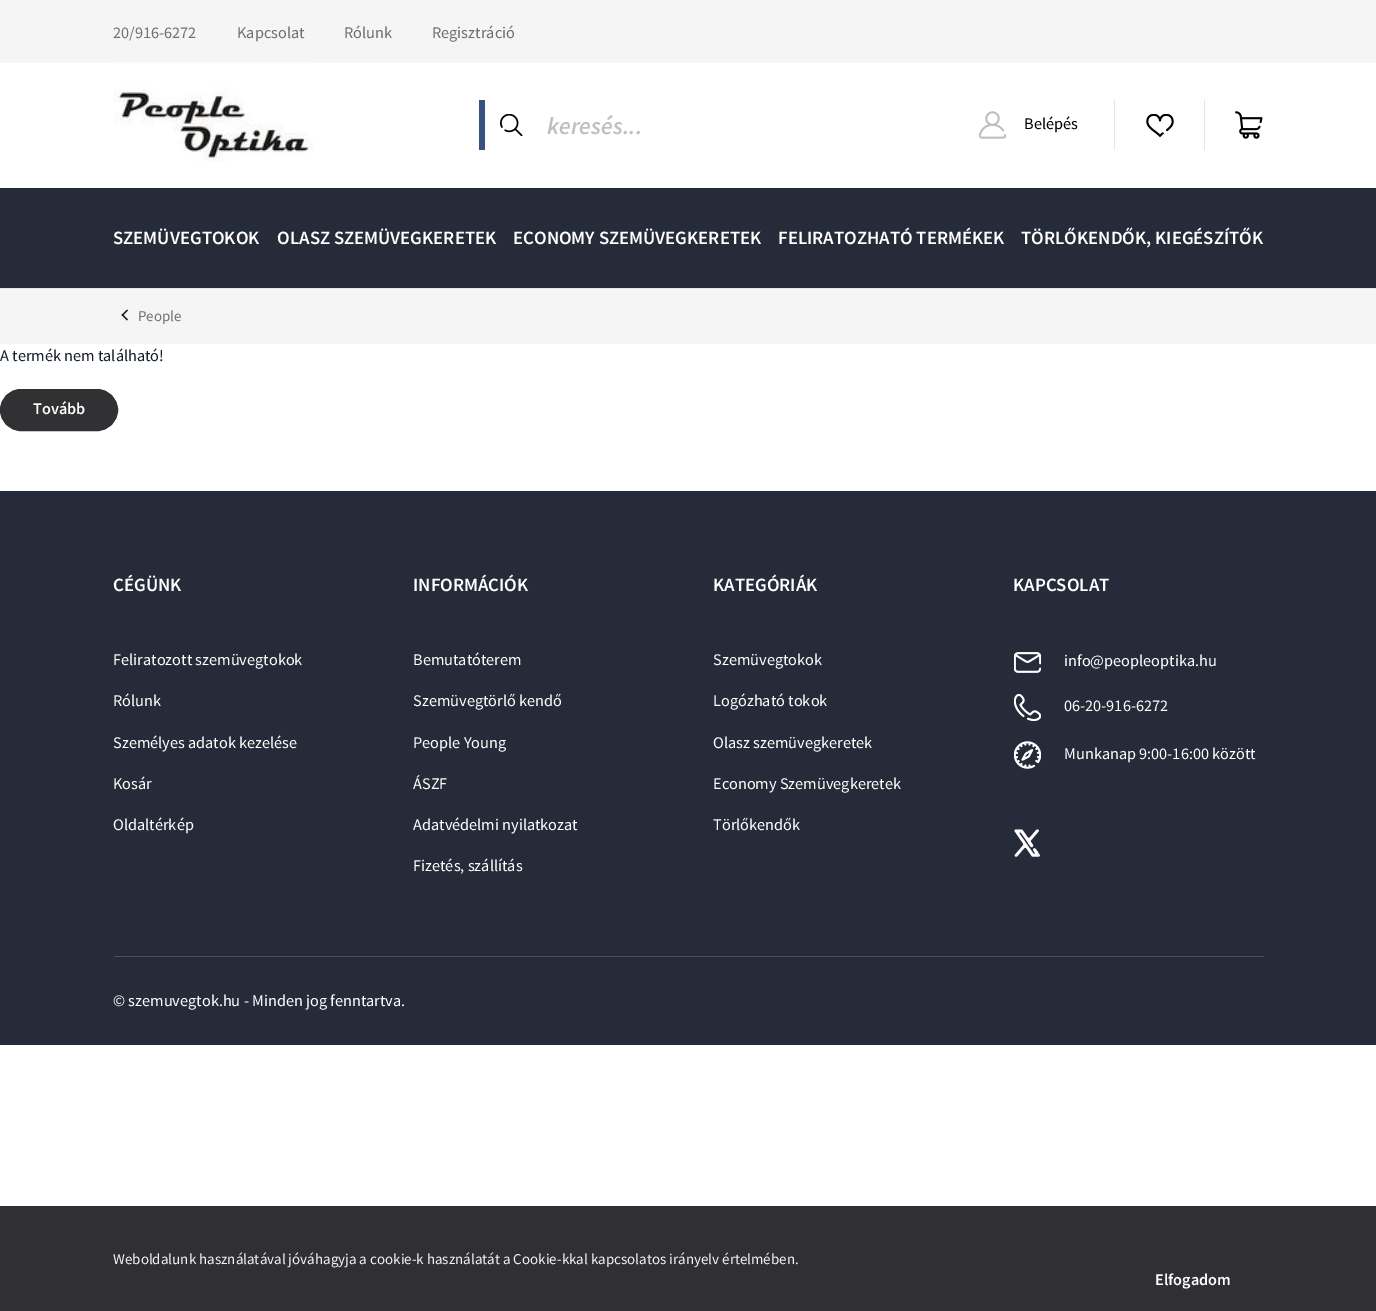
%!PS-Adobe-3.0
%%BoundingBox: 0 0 1376 1311
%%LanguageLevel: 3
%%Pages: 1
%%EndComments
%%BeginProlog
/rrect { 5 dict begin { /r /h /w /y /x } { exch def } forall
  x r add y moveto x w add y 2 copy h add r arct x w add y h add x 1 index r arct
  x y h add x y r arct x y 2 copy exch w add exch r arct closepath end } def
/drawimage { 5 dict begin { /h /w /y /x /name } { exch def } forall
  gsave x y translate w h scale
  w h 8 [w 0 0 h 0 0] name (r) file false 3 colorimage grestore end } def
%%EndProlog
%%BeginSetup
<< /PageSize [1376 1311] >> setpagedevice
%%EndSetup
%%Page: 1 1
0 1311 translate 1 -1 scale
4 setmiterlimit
1 setgray
0 0 1376 1311 rectfill
0.902 setgray
0 288 1376 1 rectfill
0.961 setgray
0 0 1376 63 rectfill
(images/1.raw) 114 62 200 100 drawimage
(images/2.raw) 500 114 23 22 drawimage
0.216 0.322 0.502 setrgbcolor
479 100 6 50 rectfill
(images/3.raw) 979 111 27 28 drawimage
0.894 setgray
1114 100 1 50 rectfill
(images/4.raw) 1146 114 28 23 drawimage
1204 100 1 50 rectfill
(images/5.raw) 1235 111 28 28 drawimage
0.149 0.169 0.227 setrgbcolor
0 188 1376 100 rectfill
0.961 setgray
0 289 1376 55 rectfill
0.082 0.118 0.149 setrgbcolor
newpath 128 319.5 moveto 127 320.5 lineto 121.5 315 lineto 122.5 314 lineto closepath fill
newpath 128 310.5 moveto 122.5 316 lineto 121.5 315 lineto 127 309.5 lineto closepath fill
0.192 0.192 0.2 setrgbcolor
0.5 389.5 117 41 20.5 rrect gsave fill grestore
stroke
0.149 0.169 0.227 setrgbcolor
0 491 1376 554 rectfill
(images/6.raw) 1014 652 27 21 drawimage
(images/7.raw) 1014 694 27 27 drawimage
(images/8.raw) 1014 741 27 28 drawimage
(images/9.raw) 1014 829 26 28 drawimage
0.286 0.314 0.341 setrgbcolor
114 956 1150 1 rectfill
0.188 0.184 0.204 setrgbcolor
0 1206 1376 105 rectfill
/SourceSansPro-Regular [16.25 0 0 -16.25 0 0] selectfont
0.435 setgray
113 38 moveto (20/916-6272) show
237 38 moveto (Kapcsolat) show
344 38 moveto (Rólunk) show
432 38 moveto (Regisztráció) show
/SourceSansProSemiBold-SemiBoldItalic [24 0 0 -24 0 0] selectfont
0.749 setgray
547 134 moveto (keresés...) show
/SourceSansPro-Regular [16.25 0 0 -16.25 0 0] selectfont
0 setgray
1024 129 moveto (Belépés) show
/SourceSansProSemiBold-SemiBold [18.75 0 0 -18.75 0 0] selectfont
1 setgray
113 244 moveto (SZEMÜVEGTOKOK) show
277 244 moveto (OLASZ SZEMÜVEGKERETEK) show
513 244 moveto (ECONOMY SZEMÜVEGKERETEK) show
778 244 moveto (FELIRATOZHATÓ TERMÉKEK) show
1021 244 moveto (TÖRLŐKENDŐK, KIEGÉSZÍTŐK) show
/SourceSansPro-Regular [15 0 0 -15 0 0] selectfont
0.435 setgray
138 321 moveto (People) show
/SourceSansPro-Regular [16.25 0 0 -16.25 0 0] selectfont
0.082 0.118 0.149 setrgbcolor
0 361 moveto (A termék nem található!) show
/SourceSansProSemiBold-SemiBold [16.25 0 0 -16.25 0 0] selectfont
1 setgray
33 414 moveto (Tovább) show
/SourceSansProSemiBold-SemiBold [18.75 0 0 -18.75 0 0] selectfont
113 591 moveto (CÉGÜNK) show
/SourceSansPro-Regular [16.25 0 0 -16.25 0 0] selectfont
113 665 moveto (Feliratozott szemüvegtokok) show
113 706 moveto (Rólunk) show
113 748 moveto (Személyes adatok kezelése) show
113 789 moveto (Kosár) show
113 830 moveto (Oldaltérkép) show
/SourceSansProSemiBold-SemiBold [18.75 0 0 -18.75 0 0] selectfont
413 591 moveto (INFORMÁCIÓK) show
/SourceSansPro-Regular [16.25 0 0 -16.25 0 0] selectfont
413 665 moveto (Bemutatóterem) show
413 706 moveto (Szemüvegtörlő kendő) show
413 748 moveto (People Young) show
413 789 moveto (ÁSZF) show
413 830 moveto (Adatvédelmi nyilatkozat) show
413 871 moveto (Fizetés, szállítás) show
/SourceSansProSemiBold-SemiBold [18.75 0 0 -18.75 0 0] selectfont
713 591 moveto (KATEGÓRIÁK) show
/SourceSansPro-Regular [16.25 0 0 -16.25 0 0] selectfont
713 665 moveto (Szemüvegtokok) show
713 706 moveto (Logózható tokok) show
713 748 moveto (Olasz szemüvegkeretek) show
713 789 moveto (Economy Szemüvegkeretek) show
713 830 moveto (Törlőkendők) show
/SourceSansProSemiBold-SemiBold [18.75 0 0 -18.75 0 0] selectfont
1013 591 moveto (KAPCSOLAT) show
/SourceSansPro-Regular [16.25 0 0 -16.25 0 0] selectfont
1064 666 moveto (info@peopleoptika.hu) show
1064 711 moveto (06-20-916-6272) show
1064 759 moveto (Munkanap 9:00-16:00 között) show
113 1006 moveto (© szemuvegtok.hu - Minden jog fenntartva.) show
/SourceSansPro-Regular [15 0 0 -15 0 0] selectfont
0.961 setgray
113 1264 moveto (Weboldalunk használatával jóváhagyja a cookie-k használatát a Cookie-kkal kapcsolatos irányelv értelmében.) show
/SourceSansProSemiBold-SemiBold [16.25 0 0 -16.25 0 0] selectfont
1 setgray
1155 1285 moveto (Elfogadom) show
showpage
%%EOF
